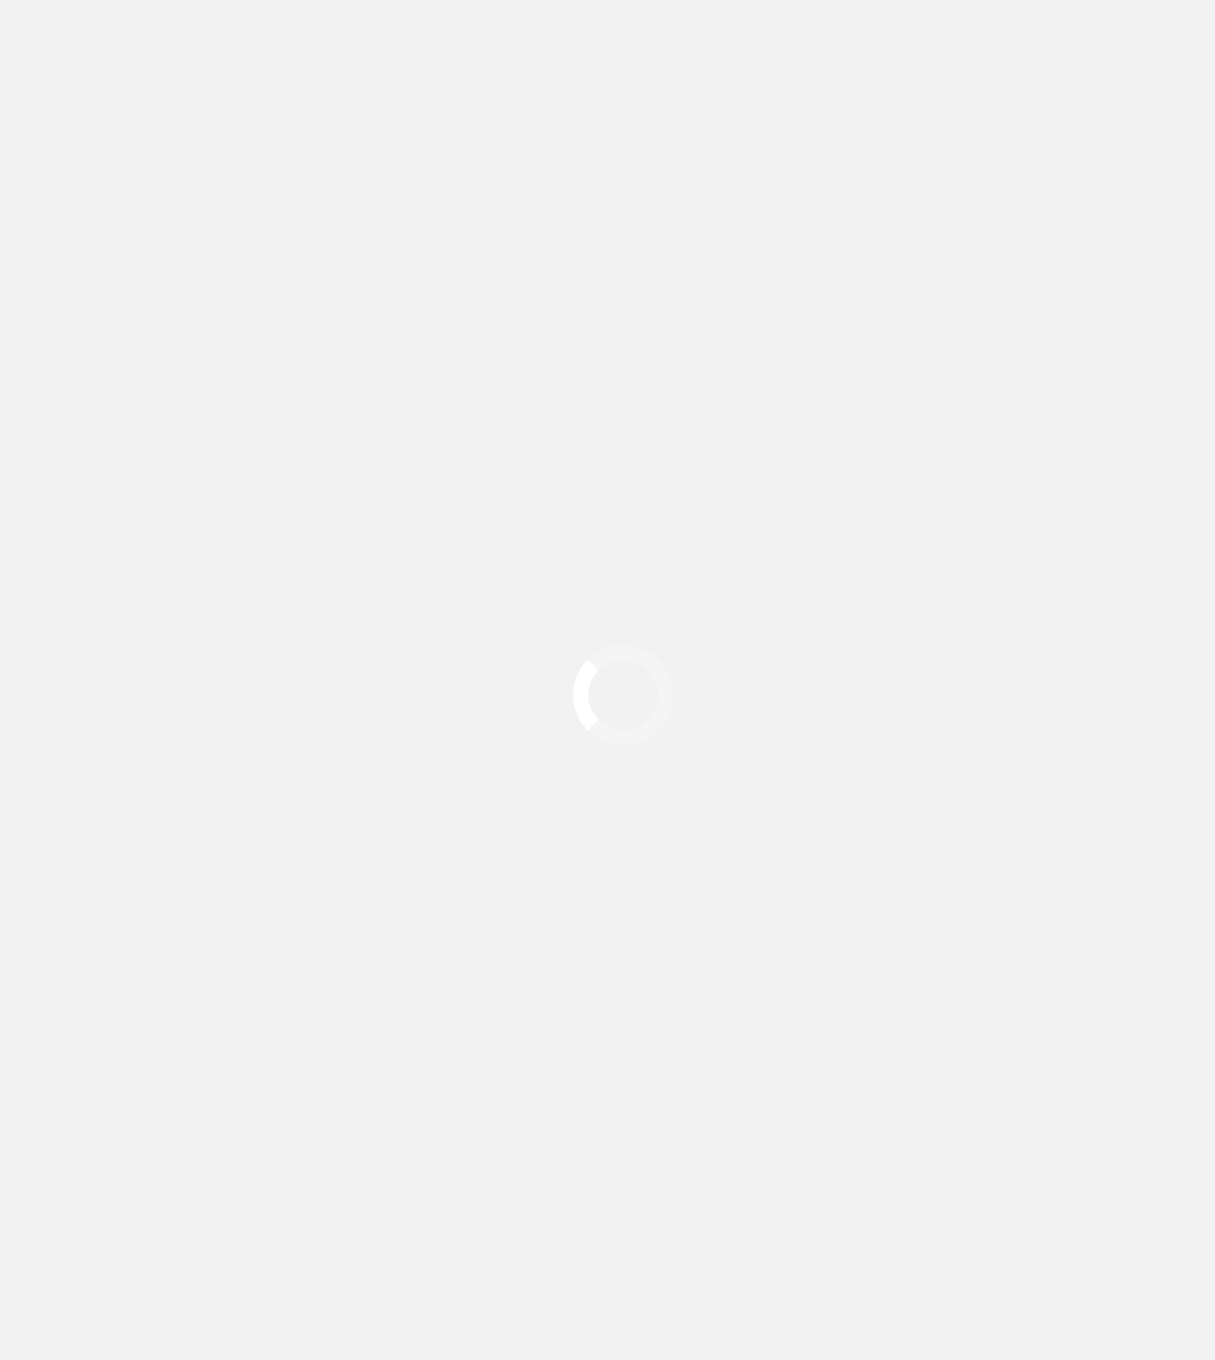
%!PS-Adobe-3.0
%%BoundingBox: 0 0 1215 1360
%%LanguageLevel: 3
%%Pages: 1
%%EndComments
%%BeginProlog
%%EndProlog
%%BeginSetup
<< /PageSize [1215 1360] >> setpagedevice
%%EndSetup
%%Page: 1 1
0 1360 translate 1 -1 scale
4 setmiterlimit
0.949 setgray
0 0 1215 1360 rectfill
0.961 setgray
15 setlinewidth
newpath 593 665 moveto 603 655 617.5 650.5 631.5 653.5 curveto 639.5 655 647 659 653 665 curveto 679.5 691.5 660.5 737.5 623 737.5 curveto 612 737.5 601 733 593 725 curveto stroke
1 setgray
newpath 593 725 moveto 576.5 708.5 576.5 681.5 593 665 curveto stroke
showpage
%%EOF
